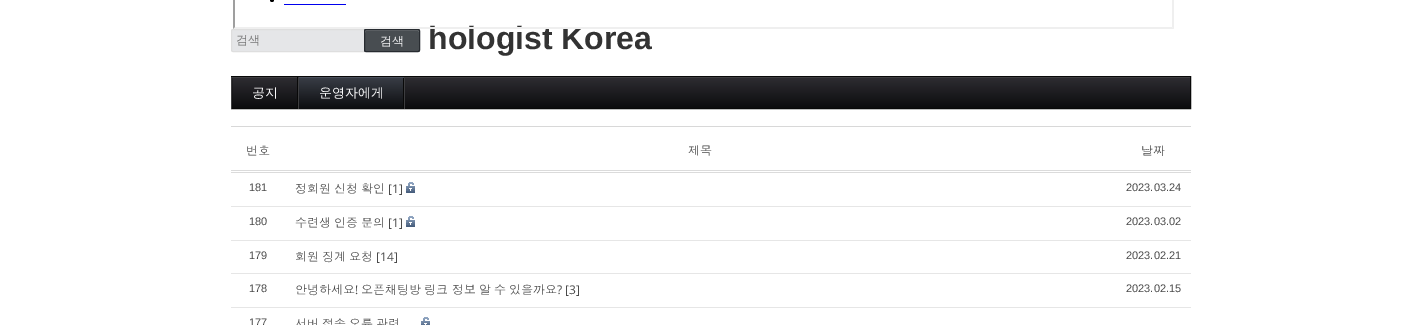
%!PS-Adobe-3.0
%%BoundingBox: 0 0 1422 325
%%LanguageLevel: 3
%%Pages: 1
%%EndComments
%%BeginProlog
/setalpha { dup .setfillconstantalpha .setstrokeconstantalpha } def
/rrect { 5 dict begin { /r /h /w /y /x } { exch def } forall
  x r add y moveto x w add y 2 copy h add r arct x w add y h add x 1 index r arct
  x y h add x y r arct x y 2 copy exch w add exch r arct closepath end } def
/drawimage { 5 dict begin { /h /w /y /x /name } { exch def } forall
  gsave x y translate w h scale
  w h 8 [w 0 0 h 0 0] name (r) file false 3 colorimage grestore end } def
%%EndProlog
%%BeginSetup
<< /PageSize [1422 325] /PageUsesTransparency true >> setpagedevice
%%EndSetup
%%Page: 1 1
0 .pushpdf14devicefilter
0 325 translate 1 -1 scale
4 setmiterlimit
1 setgray
0 0 1422 325 rectfill
0.937 setgray
newpath 1174 -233 moveto 1174 29 lineto 1172 27 lineto 1172 -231 lineto closepath fill
0 setgray
newpath 272 0 2 0 360 arc closepath fill
0 0 0.933 setrgbcolor
284 4 62 1 rectfill
0.898 0.902 0.91 setrgbcolor
231.5 29.5 135 22 1.5 rrect gsave fill grestore
0.871 setgray
stroke
0.282 0.302 0.318 setrgbcolor
364 29 56 23 2 rrect fill
0.427 0.443 0.455 setrgbcolor
newpath 366 31 moveto 418 31 lineto 419 32 lineto 419 31 419 30 418 30 curveto 375 30 lineto 368 30 365 27 365 33 curveto closepath fill
0.153 0.169 0.188 setrgbcolor
364.5 29.5 55 22 1.5 rrect stroke
gsave newpath 232 78 moveto 1190 78 lineto 1190 108 lineto 232 108 lineto closepath clip newpath
<< /ShadingType 2 /ColorSpace /DeviceRGB /Coords [711 77 711 108] /Extend [true true] /Function << /FunctionType 2 /Domain [0 1] /C0 [0.18 0.176 0.196] /C1 [0.047 0.047 0.055] /N 1 >> >> shfill grestore
0.031 setgray
231.5 76.5 959 32 rectstroke
0.243 0.243 0.251 setrgbcolor
232 77 958 1 rectfill
0.98 setalpha
298 77 1 32 rectfill
1 setalpha
0.239 0.239 0.247 setrgbcolor
231 77 1 32 rectfill
0.98 setalpha
0.031 setgray
297 77 1 32 rectfill
gsave newpath 298 78 moveto 405 78 lineto 405 109 lineto 298 109 lineto closepath clip newpath
<< /ShadingType 2 /ColorSpace /DeviceRGB /Coords [352 78 352 109] /Extend [true true] /Function << /FunctionType 2 /Domain [0 1] /C0 [0.22 0.235 0.271] /C1 [0.047 0.051 0.059] /N 1 >> >> shfill grestore
1 setalpha
0.29 0.314 0.357 setrgbcolor
298 77 107 1 rectfill
0.98 setalpha
0.243 0.243 0.251 setrgbcolor
404 77 1 32 rectfill
298 77 1 32 rectfill
0.031 setgray
403 78 1 31 rectfill
1 setalpha
0.847 setgray
231 126 960 1 rectfill
0.859 setgray
231 170 960 1 rectfill
231 172 960 1 rectfill
0.902 setgray
231 206 960 1 rectfill
(images/1.raw) 406 182 9 11 drawimage
231 240 960 1 rectfill
(images/1.raw) 406 216 9 11 drawimage
231 273 960 1 rectfill
231 307 960 1 rectfill
(images/2.raw) 421 317 9 8 drawimage
/WenQuanYiZenHei-Medium [12 0 0 -12 0 0] selectfont
0.459 setgray
236 44 moveto (검색) show
0.98 0.98 0.984 setrgbcolor
380 45 moveto (검색) show
/LiberationSans-Bold [32 0 0 -32 0 0] selectfont
0.2 setgray
428 49 moveto (hologist Korea) show
0.937 setgray
newpath 1174 29 moveto 233 29 lineto 235 27 lineto 1172 27 lineto closepath fill
0.624 setgray
newpath 233 29 moveto 233 -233 lineto 235 -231 lineto 235 27 lineto closepath fill
/WenQuanYiZenHei-Medium [13 0 0 -13 0 0] selectfont
0.98 0.98 0.984 setrgbcolor
252 97 moveto (공지) show
319 97 moveto (운영자에게) show
/Dotum-Regular [12 0 0 -12 0 0] selectfont
0.29 setgray
246 155 moveto (번호) show
688 155 moveto (제목) show
1141 155 moveto (날짜) show
/LiberationSans-Regular [11 0 0 -11 0 0] selectfont
249 191 moveto (181) show
/Dotum-Regular [12 0 0 -12 0 0] selectfont
295 193 moveto -1 0 32 (정회원 신청 확인) widthshow
/OpenSans-Regular [12 0 0 -12 0 0] selectfont
388 193 moveto ([1]) show
/LiberationSans-Regular [11 0 0 -11 0 0] selectfont
1126 191 moveto (2023.03.24) show
249 225 moveto (180) show
/Dotum-Regular [12 0 0 -12 0 0] selectfont
295 227 moveto -1 0 32 (수련생 인증 문의) widthshow
/OpenSans-Regular [12 0 0 -12 0 0] selectfont
388 227 moveto ([1]) show
/LiberationSans-Regular [11 0 0 -11 0 0] selectfont
1126 225 moveto (2023.03.02) show
249 259 moveto (179) show
/Dotum-Regular [12 0 0 -12 0 0] selectfont
295 261 moveto -1 0 32 (회원 징계 요청) widthshow
/OpenSans-Regular [12 0 0 -12 0 0] selectfont
376 261 moveto ([14]) show
/LiberationSans-Regular [11 0 0 -11 0 0] selectfont
1126 259 moveto (2023.02.21) show
249 292 moveto (178) show
/Dotum-Regular [12 0 0 -12 0 0] selectfont
295 294 moveto (안녕하세요) show
/OpenSans-Regular [12 0 0 -12 0 0] selectfont
355 294 moveto (!) show
/Dotum-Regular [12 0 0 -12 0 0] selectfont
361 294 moveto -0.75 0 32 (오픈채팅방 링크 정보 알 수 있을까요) widthshow
/OpenSans-Regular [12 0 0 -12 0 0] selectfont
557 294 moveto (? [3]) show
/LiberationSans-Regular [11 0 0 -11 0 0] selectfont
1126 292 moveto (2023.02.15) show
249 326 moveto (177) show
/Dotum-Regular [12 0 0 -12 0 0] selectfont
295 328 moveto -1 0 32 (서버 접속 오류 관련) widthshow
.poppdf14devicefilter showpage
%%EOF
